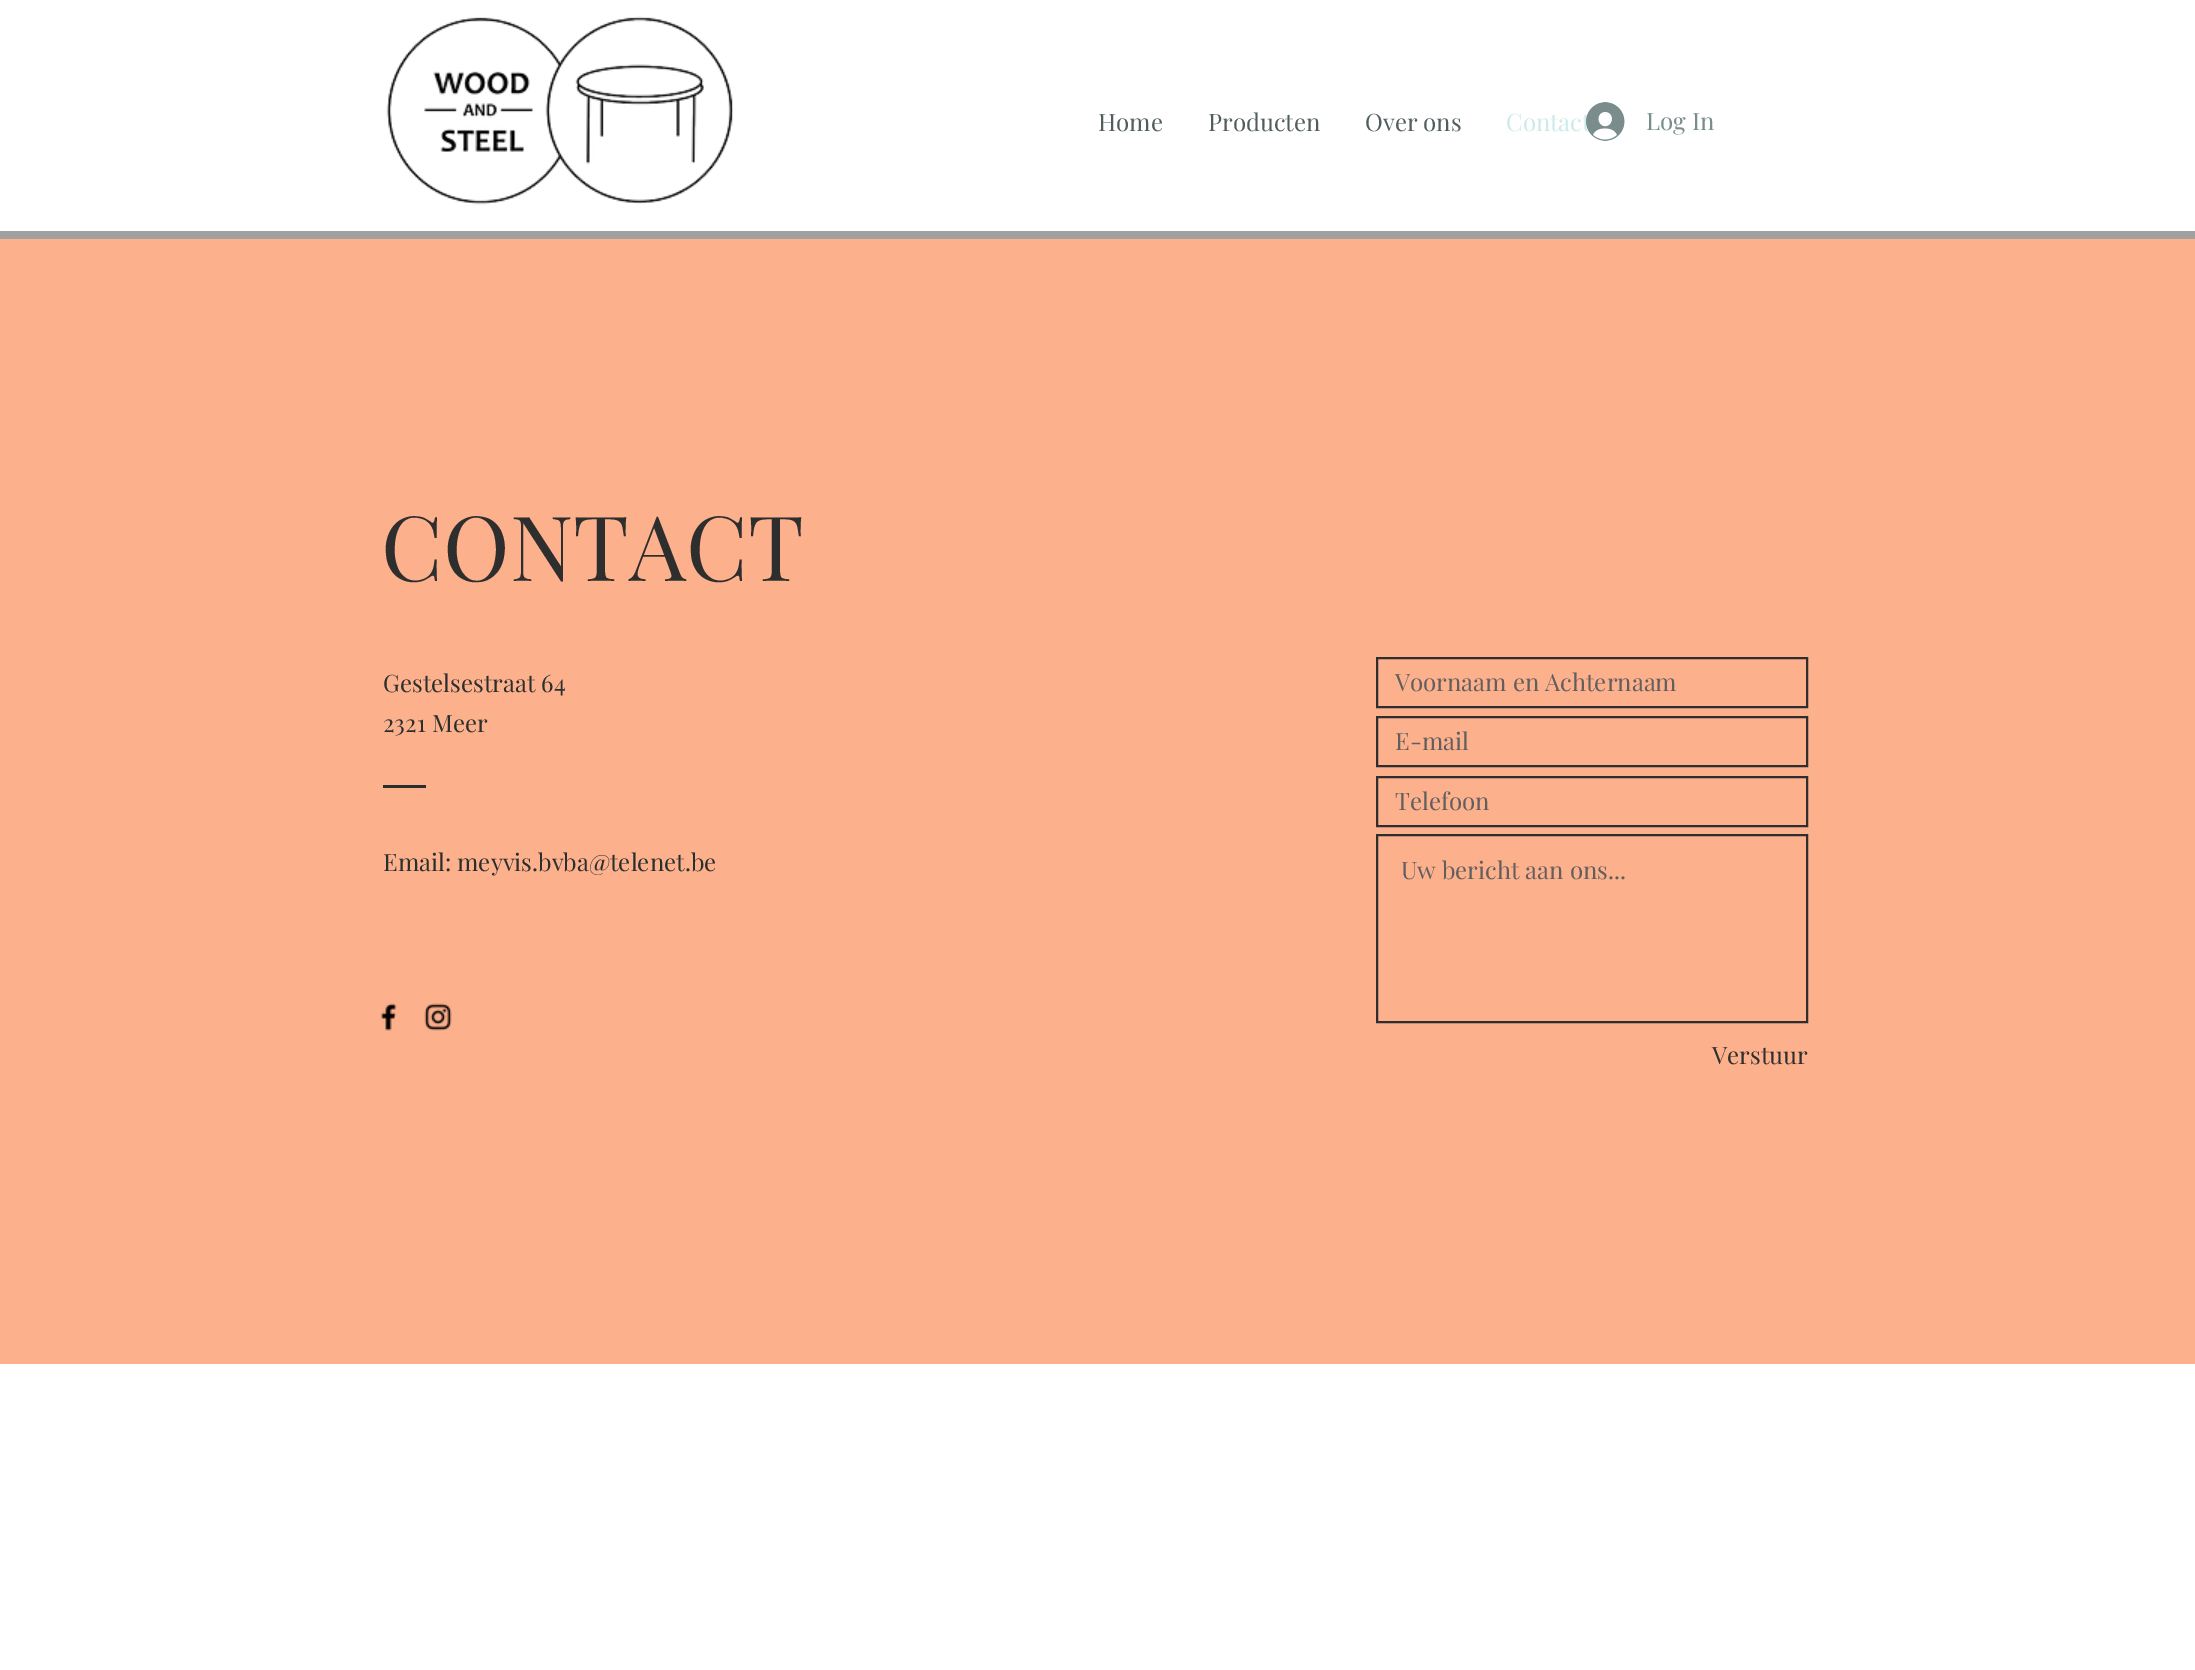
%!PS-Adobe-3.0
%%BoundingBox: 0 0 2195 1670
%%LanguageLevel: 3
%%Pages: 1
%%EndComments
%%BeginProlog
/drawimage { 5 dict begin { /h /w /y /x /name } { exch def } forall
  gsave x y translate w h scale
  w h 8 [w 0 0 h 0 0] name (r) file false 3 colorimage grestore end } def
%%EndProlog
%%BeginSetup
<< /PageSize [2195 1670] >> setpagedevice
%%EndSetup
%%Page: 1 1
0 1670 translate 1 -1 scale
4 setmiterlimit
1 setgray
0 0 2195 1670 rectfill
(images/1.raw) 386 16 348 189 drawimage
0.627 0.627 0.624 setrgbcolor
0 231 2195 8 rectfill
0.988 0.69 0.549 setrgbcolor
0 239 2195 1125 rectfill
0.184 0.18 0.18 setrgbcolor
2 setlinewidth
1377 658 430 49 rectstroke
1377 717 430 49 rectstroke
1377 777 430 49 rectstroke
1377 835 430 187 rectstroke
0.161 0.184 0.184 setrgbcolor
383 785 43 3 rectfill
(images/3.raw) 380 1003 17 28 drawimage
(images/4.raw) 424 1003 28 28 drawimage
/PlayfairDisplay-Regular [24 0 0 -24 0 0] selectfont
0.322 0.369 0.369 setrgbcolor
1098 131 moveto (Home) show
1208 131 moveto (Producten) show
1365 131 moveto (Over ons) show
0.8 0.918 0.918 setrgbcolor
1506 131 moveto (Contact) show
(images/2.raw) 1586 102 39 39 drawimage
0.478 0.549 0.549 setrgbcolor
1646 130 moveto (Log In) show
/PlayfairDisplay-Regular [90 0 0 -90 0 0] selectfont
0.184 0.18 0.18 setrgbcolor
381 581 moveto (CONTACT) show
/PlayfairDisplay-Regular [24 0 0 -24 0 0] selectfont
0.161 0.184 0.184 setrgbcolor
383 692 moveto (Gestelsestraat 64) show
383 732 moveto (2321 Meer) show
0.376 0.369 0.369 setrgbcolor
1395 691 moveto (Voornaam en Achternaam) show
1395 750 moveto (E-mail) show
1395 810 moveto (Telefoon) show
1401 879 moveto (Uw bericht aan ons...) show
0.184 0.18 0.18 setrgbcolor
1712 1064 moveto (Verstuur) show
0.161 0.184 0.184 setrgbcolor
383 871 moveto (Email: meyvis.bvba@telenet.be) show
showpage
%%EOF
